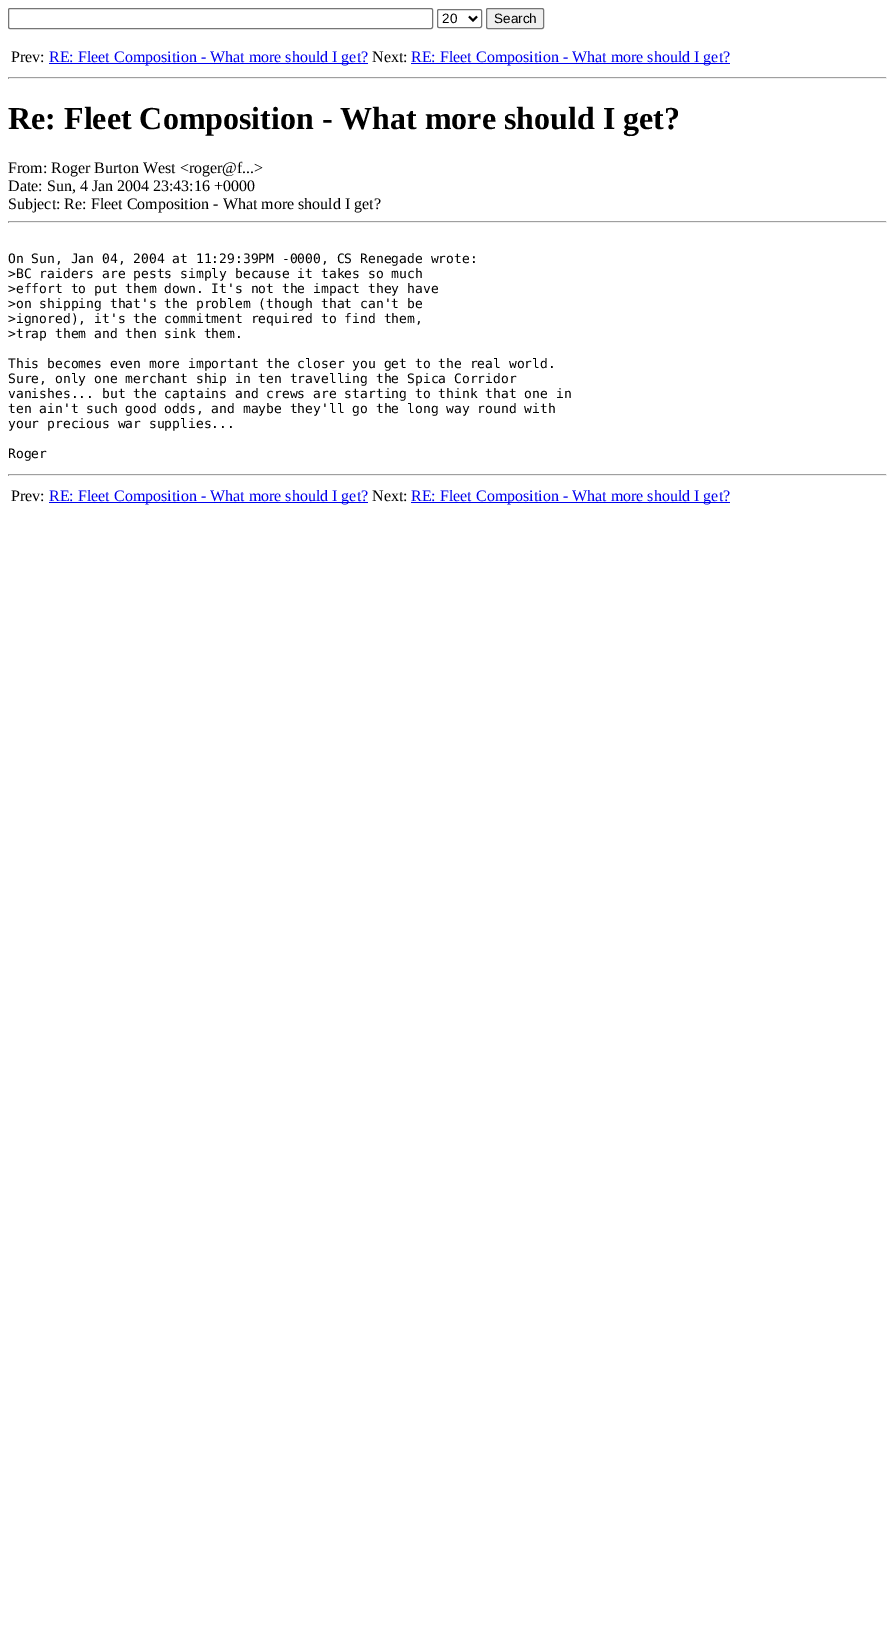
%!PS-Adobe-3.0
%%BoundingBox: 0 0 895 1649
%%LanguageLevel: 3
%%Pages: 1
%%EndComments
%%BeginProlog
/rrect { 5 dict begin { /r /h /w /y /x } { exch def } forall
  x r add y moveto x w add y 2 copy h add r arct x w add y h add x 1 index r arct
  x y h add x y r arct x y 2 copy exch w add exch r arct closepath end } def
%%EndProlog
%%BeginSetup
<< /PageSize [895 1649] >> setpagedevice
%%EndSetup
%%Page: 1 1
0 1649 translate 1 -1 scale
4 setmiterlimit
1 setgray
0 0 895 1649 rectfill
0.463 setgray
8.5 8.5 424 20 1.5 rrect stroke
437.5 9.5 44 18 1.5 rrect stroke
0 setgray
2 setlinewidth
newpath 469 16.5 moveto 473 20.5 lineto 477 16.5 lineto stroke
0.937 setgray
486.5 8.5 57 20 1.5 rrect gsave fill grestore
0.463 setgray
1 setlinewidth
stroke
0 0 0.933 setrgbcolor
49 63 319 1 rectfill
411 63 319 1 rectfill
0.624 setgray
8 77 879 1 rectfill
0.933 setgray
886 77 1 2 rectfill
8 78 879 1 rectfill
0.624 setgray
8 77 1 2 rectfill
8 221 879 1 rectfill
0.933 setgray
886 221 1 2 rectfill
8 222 879 1 rectfill
0.624 setgray
8 221 1 2 rectfill
8 474 879 1 rectfill
0.933 setgray
886 474 1 2 rectfill
8 475 879 1 rectfill
0.624 setgray
8 474 1 2 rectfill
0 0 0.933 setrgbcolor
49 502 319 1 rectfill
411 502 319 1 rectfill
/LiberationSans-Regular [13.5 0 0 -13.5 0 0] selectfont
0 setgray
442 23 moveto (20) show
494 23 moveto (Search) show
/LiberationSerif-Regular [16 0 0 -16 0 0] selectfont
11 62 moveto (Prev:) show
0 0 0.933 setrgbcolor
49 62 moveto (RE: Fleet Composition - What more should I get?) show
0 setgray
372 62 moveto (Next:) show
0 0 0.933 setrgbcolor
411 62 moveto (RE: Fleet Composition - What more should I get?) show
/LiberationSerif-Bold [32 0 0 -32 0 0] selectfont
0 setgray
8 129 moveto (Re: Fleet Composition - What more should I get?) show
/LiberationSerif-Regular [16 0 0 -16 0 0] selectfont
8 173 moveto (From: Roger Burton West <roger@f...>) show
8 191 moveto (Date: Sun, 4 Jan 2004 23:43:16 +0000) show
8 209 moveto (Subject: Re: Fleet Composition - What more should I get?) show
/DejaVuSansMono-Regular [13 0 0 -13 0 0] selectfont
8 263 moveto (On Sun, Jan 04, 2004 at 11:29:39PM -0000, CS Renegade wrote:) show
8 278 moveto (>BC raiders are pests simply because it takes so much) show
8 293 moveto (>effort to put them down. It's not the impact they have) show
8 308 moveto (>on shipping that's the problem \(though that can't be) show
8 323 moveto (>ignored\), it's the commitment required to find them,) show
8 338 moveto (>trap them and then sink them.) show
8 368 moveto (This becomes even more important the closer you get to the real world.) show
8 383 moveto (Sure, only one merchant ship in ten travelling the Spica Corridor) show
8 398 moveto (vanishes... but the captains and crews are starting to think that one in) show
8 413 moveto (ten ain't such good odds, and maybe they'll go the long way round with) show
8 428 moveto (your precious war supplies...) show
8 458 moveto (Roger) show
/LiberationSerif-Regular [16 0 0 -16 0 0] selectfont
11 501 moveto (Prev:) show
0 0 0.933 setrgbcolor
49 501 moveto (RE: Fleet Composition - What more should I get?) show
0 setgray
372 501 moveto (Next:) show
0 0 0.933 setrgbcolor
411 501 moveto (RE: Fleet Composition - What more should I get?) show
showpage
%%EOF
